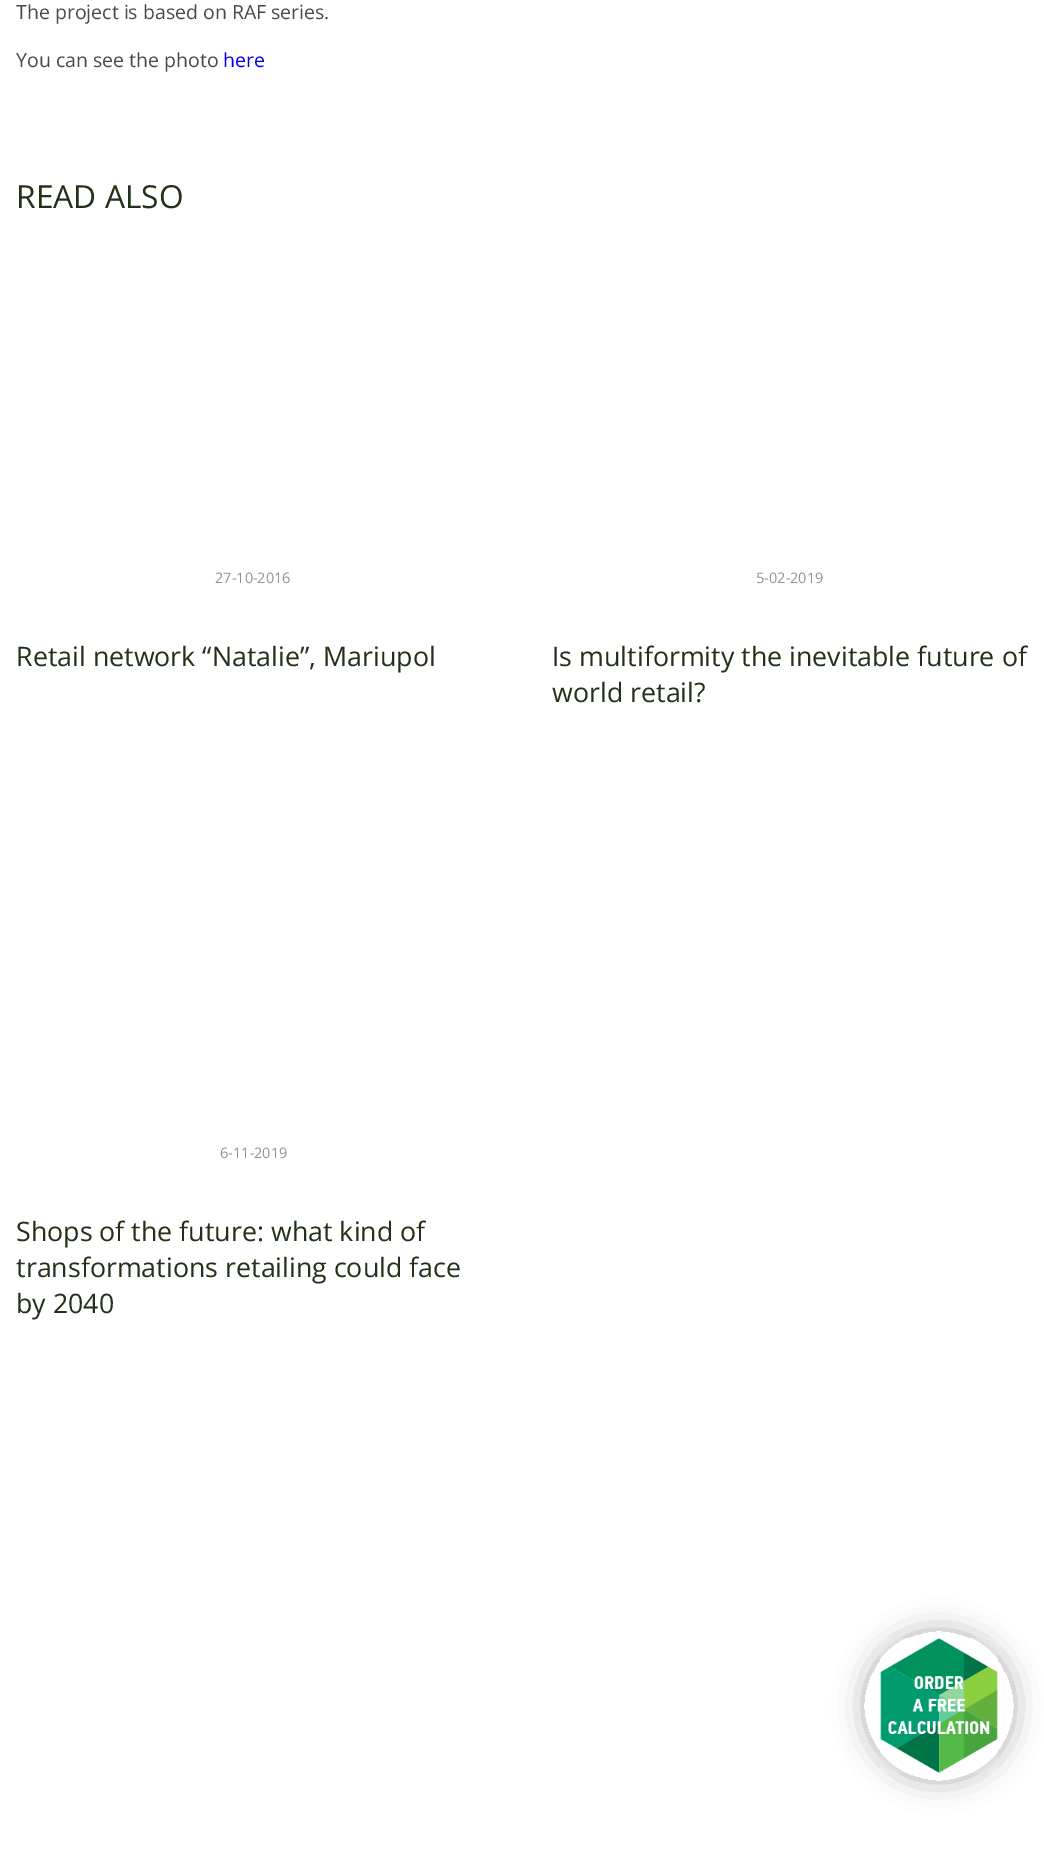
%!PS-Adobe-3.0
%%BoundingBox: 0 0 1044 1855
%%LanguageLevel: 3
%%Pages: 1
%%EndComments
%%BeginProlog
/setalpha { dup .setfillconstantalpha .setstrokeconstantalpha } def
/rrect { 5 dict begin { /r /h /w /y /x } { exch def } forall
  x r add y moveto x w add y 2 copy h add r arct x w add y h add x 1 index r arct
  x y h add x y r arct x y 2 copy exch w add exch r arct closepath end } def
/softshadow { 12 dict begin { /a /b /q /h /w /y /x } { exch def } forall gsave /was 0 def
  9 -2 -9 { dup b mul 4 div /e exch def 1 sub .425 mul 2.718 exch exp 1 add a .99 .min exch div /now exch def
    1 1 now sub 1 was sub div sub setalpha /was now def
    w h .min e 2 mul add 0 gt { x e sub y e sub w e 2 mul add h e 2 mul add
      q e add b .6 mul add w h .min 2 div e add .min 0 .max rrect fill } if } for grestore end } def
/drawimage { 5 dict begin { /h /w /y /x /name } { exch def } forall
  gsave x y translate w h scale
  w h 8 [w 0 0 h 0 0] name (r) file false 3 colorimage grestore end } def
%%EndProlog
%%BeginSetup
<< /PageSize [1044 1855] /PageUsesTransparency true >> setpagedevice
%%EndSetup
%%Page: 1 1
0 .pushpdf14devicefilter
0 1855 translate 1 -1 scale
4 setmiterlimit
1 setgray
0 0 1044 1855 rectfill
gsave
newpath 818 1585 moveto 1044 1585 lineto 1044 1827 lineto 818 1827 lineto closepath 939 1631 moveto 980.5 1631 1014 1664.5 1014 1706 curveto 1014 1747.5 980.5 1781 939 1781 curveto 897.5 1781 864 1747.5 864 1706 curveto 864 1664.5 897.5 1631 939 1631 curveto closepath eoclip newpath
0 setgray
864 1631 150 150 75 15 0.3 softshadow
grestore
(images/1.raw) 880 1638 118 135 drawimage
/OpenSans-Regular [19.5 0 0 -19.5 0 0] selectfont
0.286 setgray
16 19 moveto (The project is based on RAF series.) show
16 67 moveto (You can see the photo) show
0 0 0.933 setrgbcolor
223 67 moveto (here) show
/OpenSans-Regular [31.75 0 0 -31.75 0 0] selectfont
0.141 0.192 0.098 setrgbcolor
16 208 moveto (READ ALSO) show
/OpenSans-Regular [14.5 0 0 -14.5 0 0] selectfont
0.565 0.576 0.553 setrgbcolor
215 583 moveto (27-10-2016) show
/OpenSans-Regular [26.8 0 0 -26.8 0 0] selectfont
0.141 0.192 0.098 setrgbcolor
16 666 moveto (Retail network “Natalie”, Mariupol) show
/OpenSans-Regular [14.5 0 0 -14.5 0 0] selectfont
0.565 0.576 0.553 setrgbcolor
756 583 moveto (5-02-2019) show
/OpenSans-Regular [26.8 0 0 -26.8 0 0] selectfont
0.141 0.192 0.098 setrgbcolor
552 666 moveto (Is multiformity the inevitable future of) show
552 702 moveto (world retail?) show
/OpenSans-Regular [14.5 0 0 -14.5 0 0] selectfont
0.565 0.576 0.553 setrgbcolor
220 1158 moveto (6-11-2019) show
/OpenSans-Regular [26.8 0 0 -26.8 0 0] selectfont
0.141 0.192 0.098 setrgbcolor
16 1241 moveto (Shops of the future: what kind of) show
16 1277 moveto (transformations retailing could face) show
16 1313 moveto (by 2040) show
.poppdf14devicefilter showpage
%%EOF
